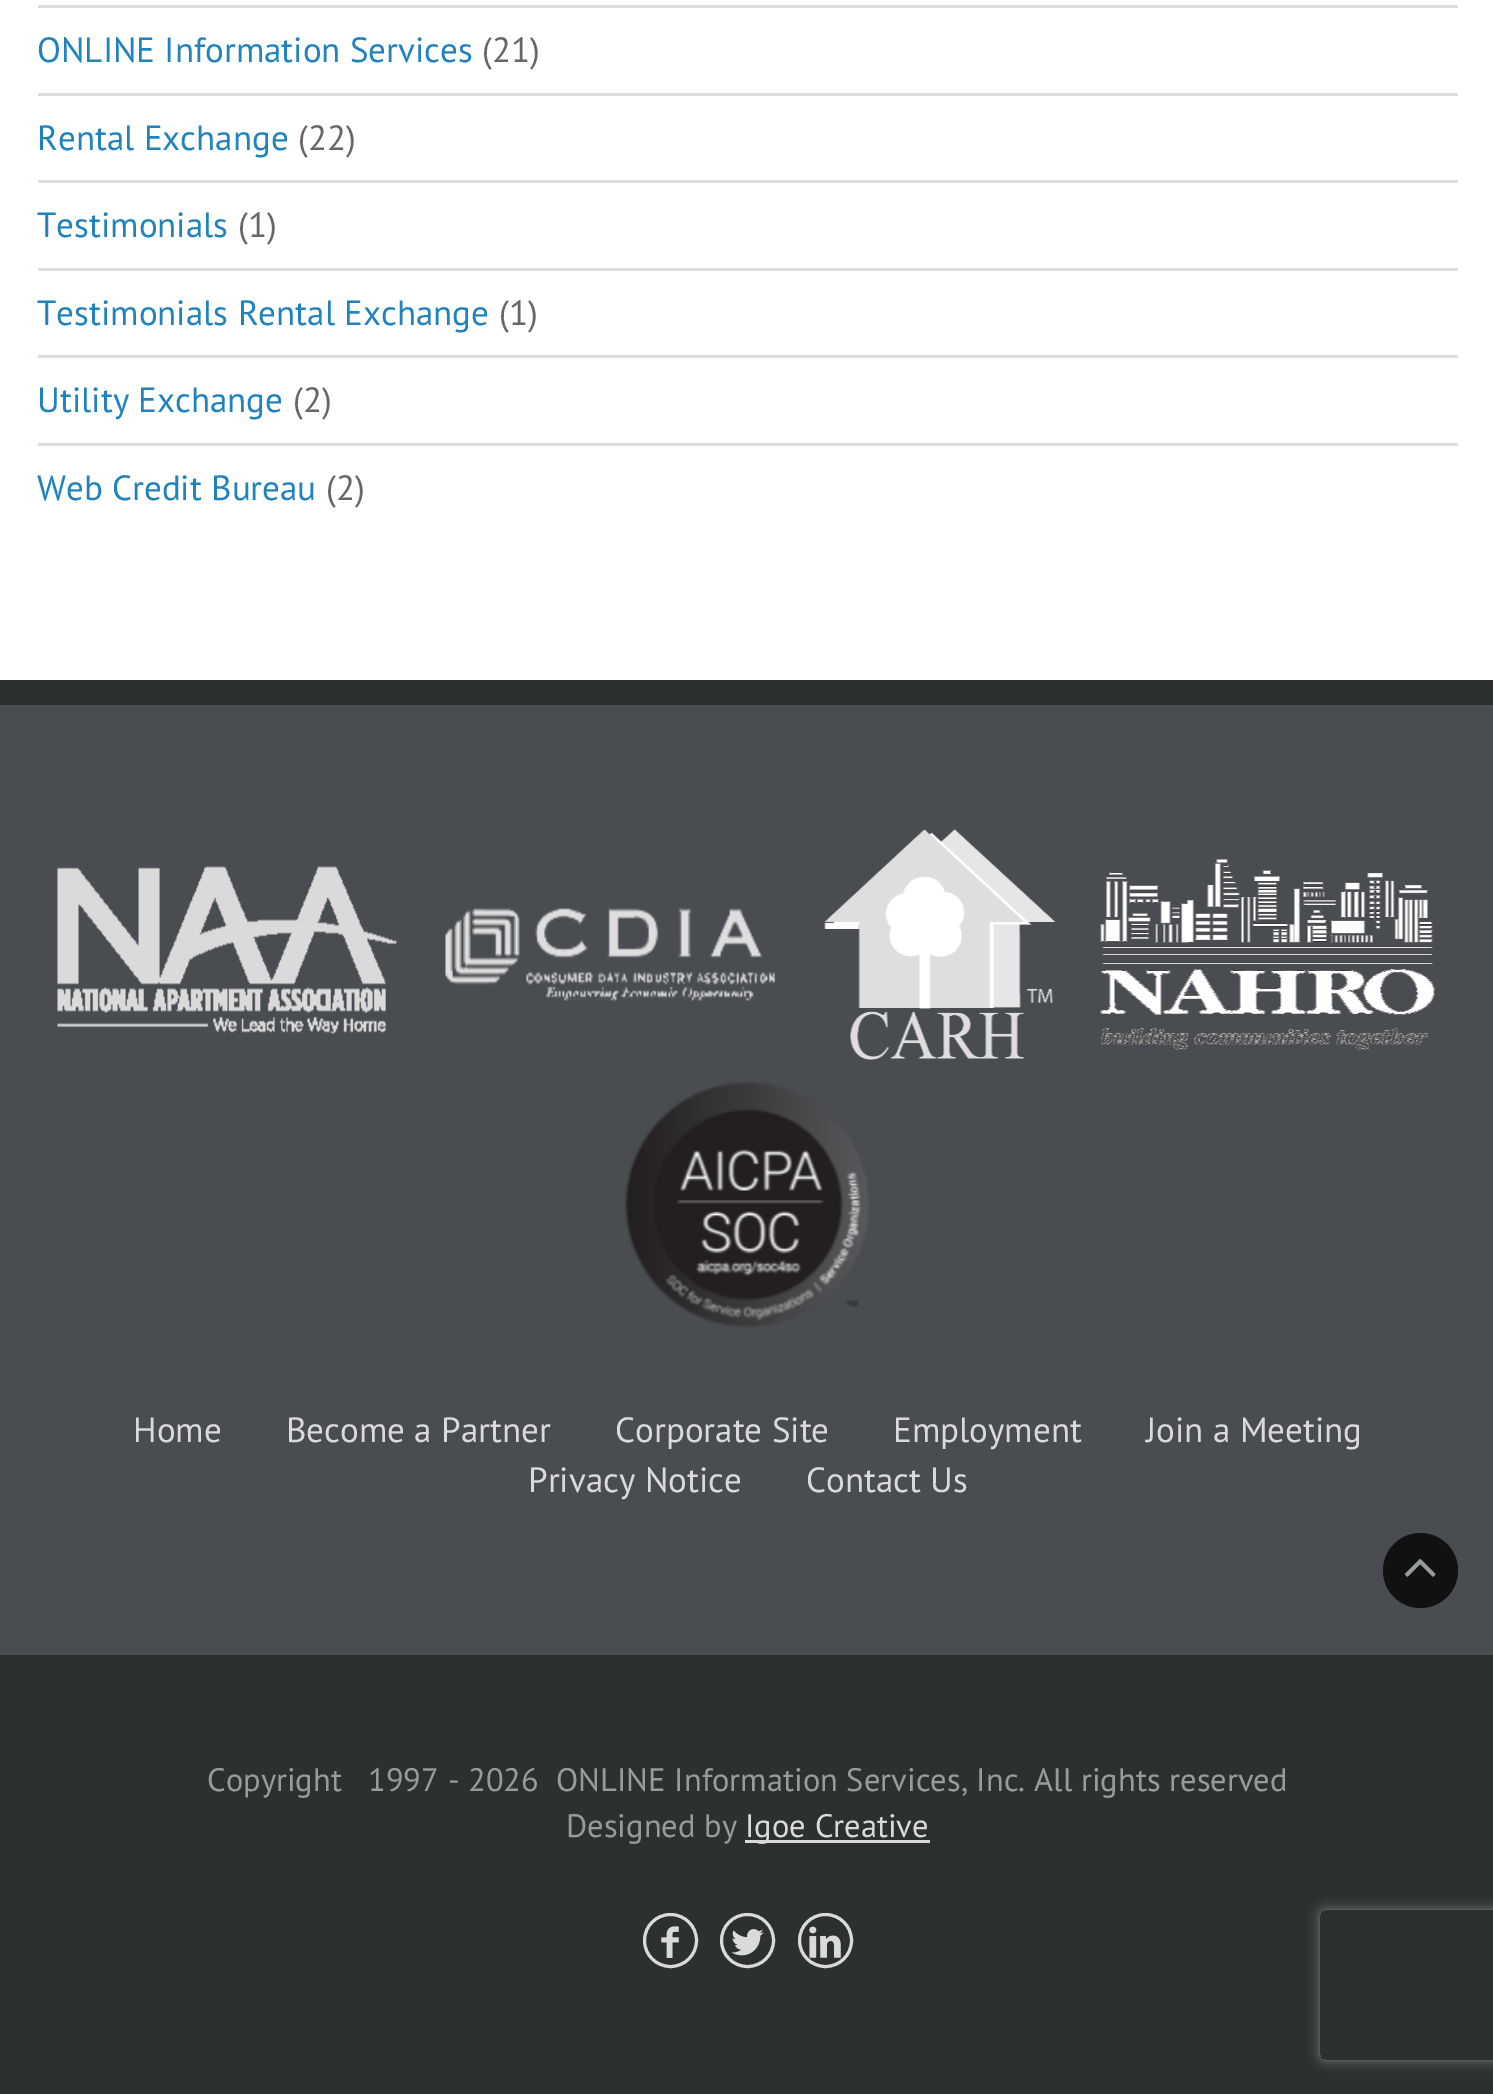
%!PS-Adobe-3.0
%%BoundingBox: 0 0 1493 2094
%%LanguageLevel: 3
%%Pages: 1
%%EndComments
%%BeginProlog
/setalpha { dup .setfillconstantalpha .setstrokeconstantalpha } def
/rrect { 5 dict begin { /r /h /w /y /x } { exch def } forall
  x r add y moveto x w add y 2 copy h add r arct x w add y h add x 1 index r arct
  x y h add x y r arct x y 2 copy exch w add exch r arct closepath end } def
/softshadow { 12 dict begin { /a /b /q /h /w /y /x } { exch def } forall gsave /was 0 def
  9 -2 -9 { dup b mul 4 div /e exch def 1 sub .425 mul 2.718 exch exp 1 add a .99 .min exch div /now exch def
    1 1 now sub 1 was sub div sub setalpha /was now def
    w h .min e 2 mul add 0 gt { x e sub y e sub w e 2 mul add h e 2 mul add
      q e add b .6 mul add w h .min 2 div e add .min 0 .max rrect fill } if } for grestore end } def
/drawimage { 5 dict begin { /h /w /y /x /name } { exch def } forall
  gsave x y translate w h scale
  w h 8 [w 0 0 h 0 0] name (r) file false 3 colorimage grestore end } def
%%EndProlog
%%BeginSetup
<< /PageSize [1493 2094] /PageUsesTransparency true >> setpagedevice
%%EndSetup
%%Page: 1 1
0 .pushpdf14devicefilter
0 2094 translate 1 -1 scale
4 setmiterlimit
1 setgray
0 0 1493 2094 rectfill
0.851 0.871 0.882 setrgbcolor
38 5 1420 3 rectfill
38 93 1420 3 rectfill
38 180 1420 3 rectfill
38 268 1420 3 rectfill
38 355 1420 3 rectfill
38 443 1420 3 rectfill
0.286 0.298 0.318 setrgbcolor
0 705 1493 950 rectfill
0.173 0.188 0.188 setrgbcolor
0 680 1493 25 rectfill
(images/1.raw) 57 866 340 168 drawimage
(images/2.raw) 445 908 331 93 drawimage
(images/3.raw) 824 829 232 231 drawimage
(images/4.raw) 1100 859 335 191 drawimage
(images/5.raw) 624 1081 246 247 drawimage
0 1655 1493 439 rectfill
0.067 setgray
newpath 1420.5 1570.5 37.5 0 360 arc closepath fill
(images/6.raw) 1404 1558 32 19 drawimage
0.855 setgray
745 1840 185 3 rectfill
3 setlinewidth
newpath 670.5 1940.5 26 0 360 arc closepath stroke
(images/7.raw) 661 1926 18 32 drawimage
newpath 747.5 1940.5 26 0 360 arc closepath stroke
(images/8.raw) 731 1929 33 27 drawimage
newpath 825.5 1940.5 26 0 360 arc closepath stroke
(images/9.raw) 809 1926 32 32 drawimage
gsave
newpath 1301 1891 moveto 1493 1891 lineto 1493 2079 lineto 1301 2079 lineto closepath 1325 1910 moveto 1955 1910 lineto 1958 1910 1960 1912 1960 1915 curveto 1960 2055 lineto 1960 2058 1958 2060 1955 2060 curveto 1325 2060 lineto 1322 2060 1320 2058 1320 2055 curveto 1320 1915 lineto 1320 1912 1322 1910 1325 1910 curveto closepath eoclip newpath
0.502 setgray
1320 1910 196 150 5 6 1 softshadow
grestore
/PTSans-Regular [35 0 0 -35 0 0] selectfont
0.129 0.514 0.741 setrgbcolor
37 62 moveto (ONLINE Information Services) show
0.4 setgray
482 62 moveto (\(21\)) show
0.129 0.514 0.741 setrgbcolor
37 150 moveto (Rental Exchange) show
0.4 setgray
298 150 moveto (\(22\)) show
0.129 0.514 0.741 setrgbcolor
37 237 moveto (Testimonials) show
0.4 setgray
238 237 moveto (\(1\)) show
0.129 0.514 0.741 setrgbcolor
37 325 moveto (Testimonials Rental Exchange) show
0.4 setgray
499 325 moveto (\(1\)) show
0.129 0.514 0.741 setrgbcolor
37 412 moveto (Utility Exchange) show
0.4 setgray
293 412 moveto (\(2\)) show
0.129 0.514 0.741 setrgbcolor
37 500 moveto (Web Credit Bureau) show
0.4 setgray
326 500 moveto (\(2\)) show
0.855 setgray
133 1442 moveto (Home) show
286 1442 moveto (Become a Partner) show
615 1442 moveto (Corporate Site) show
893 1442 moveto (Employment) show
1146 1442 moveto (Join a Meeting) show
528 1492 moveto (Privacy Notice) show
806 1492 moveto (Contact Us) show
/PTSans-Regular [32.5 0 0 -32.5 0 0] selectfont
0.588 0.612 0.612 setrgbcolor
207 1791 moveto (Copyright) show
368 1791 moveto (1997 - 2026) show
556 1791 moveto (ONLINE Information Services, Inc. All rights reserved) show
566 1837 moveto (Designed by) show
0.855 setgray
745 1837 moveto (Igoe Creative) show
.poppdf14devicefilter showpage
%%EOF
